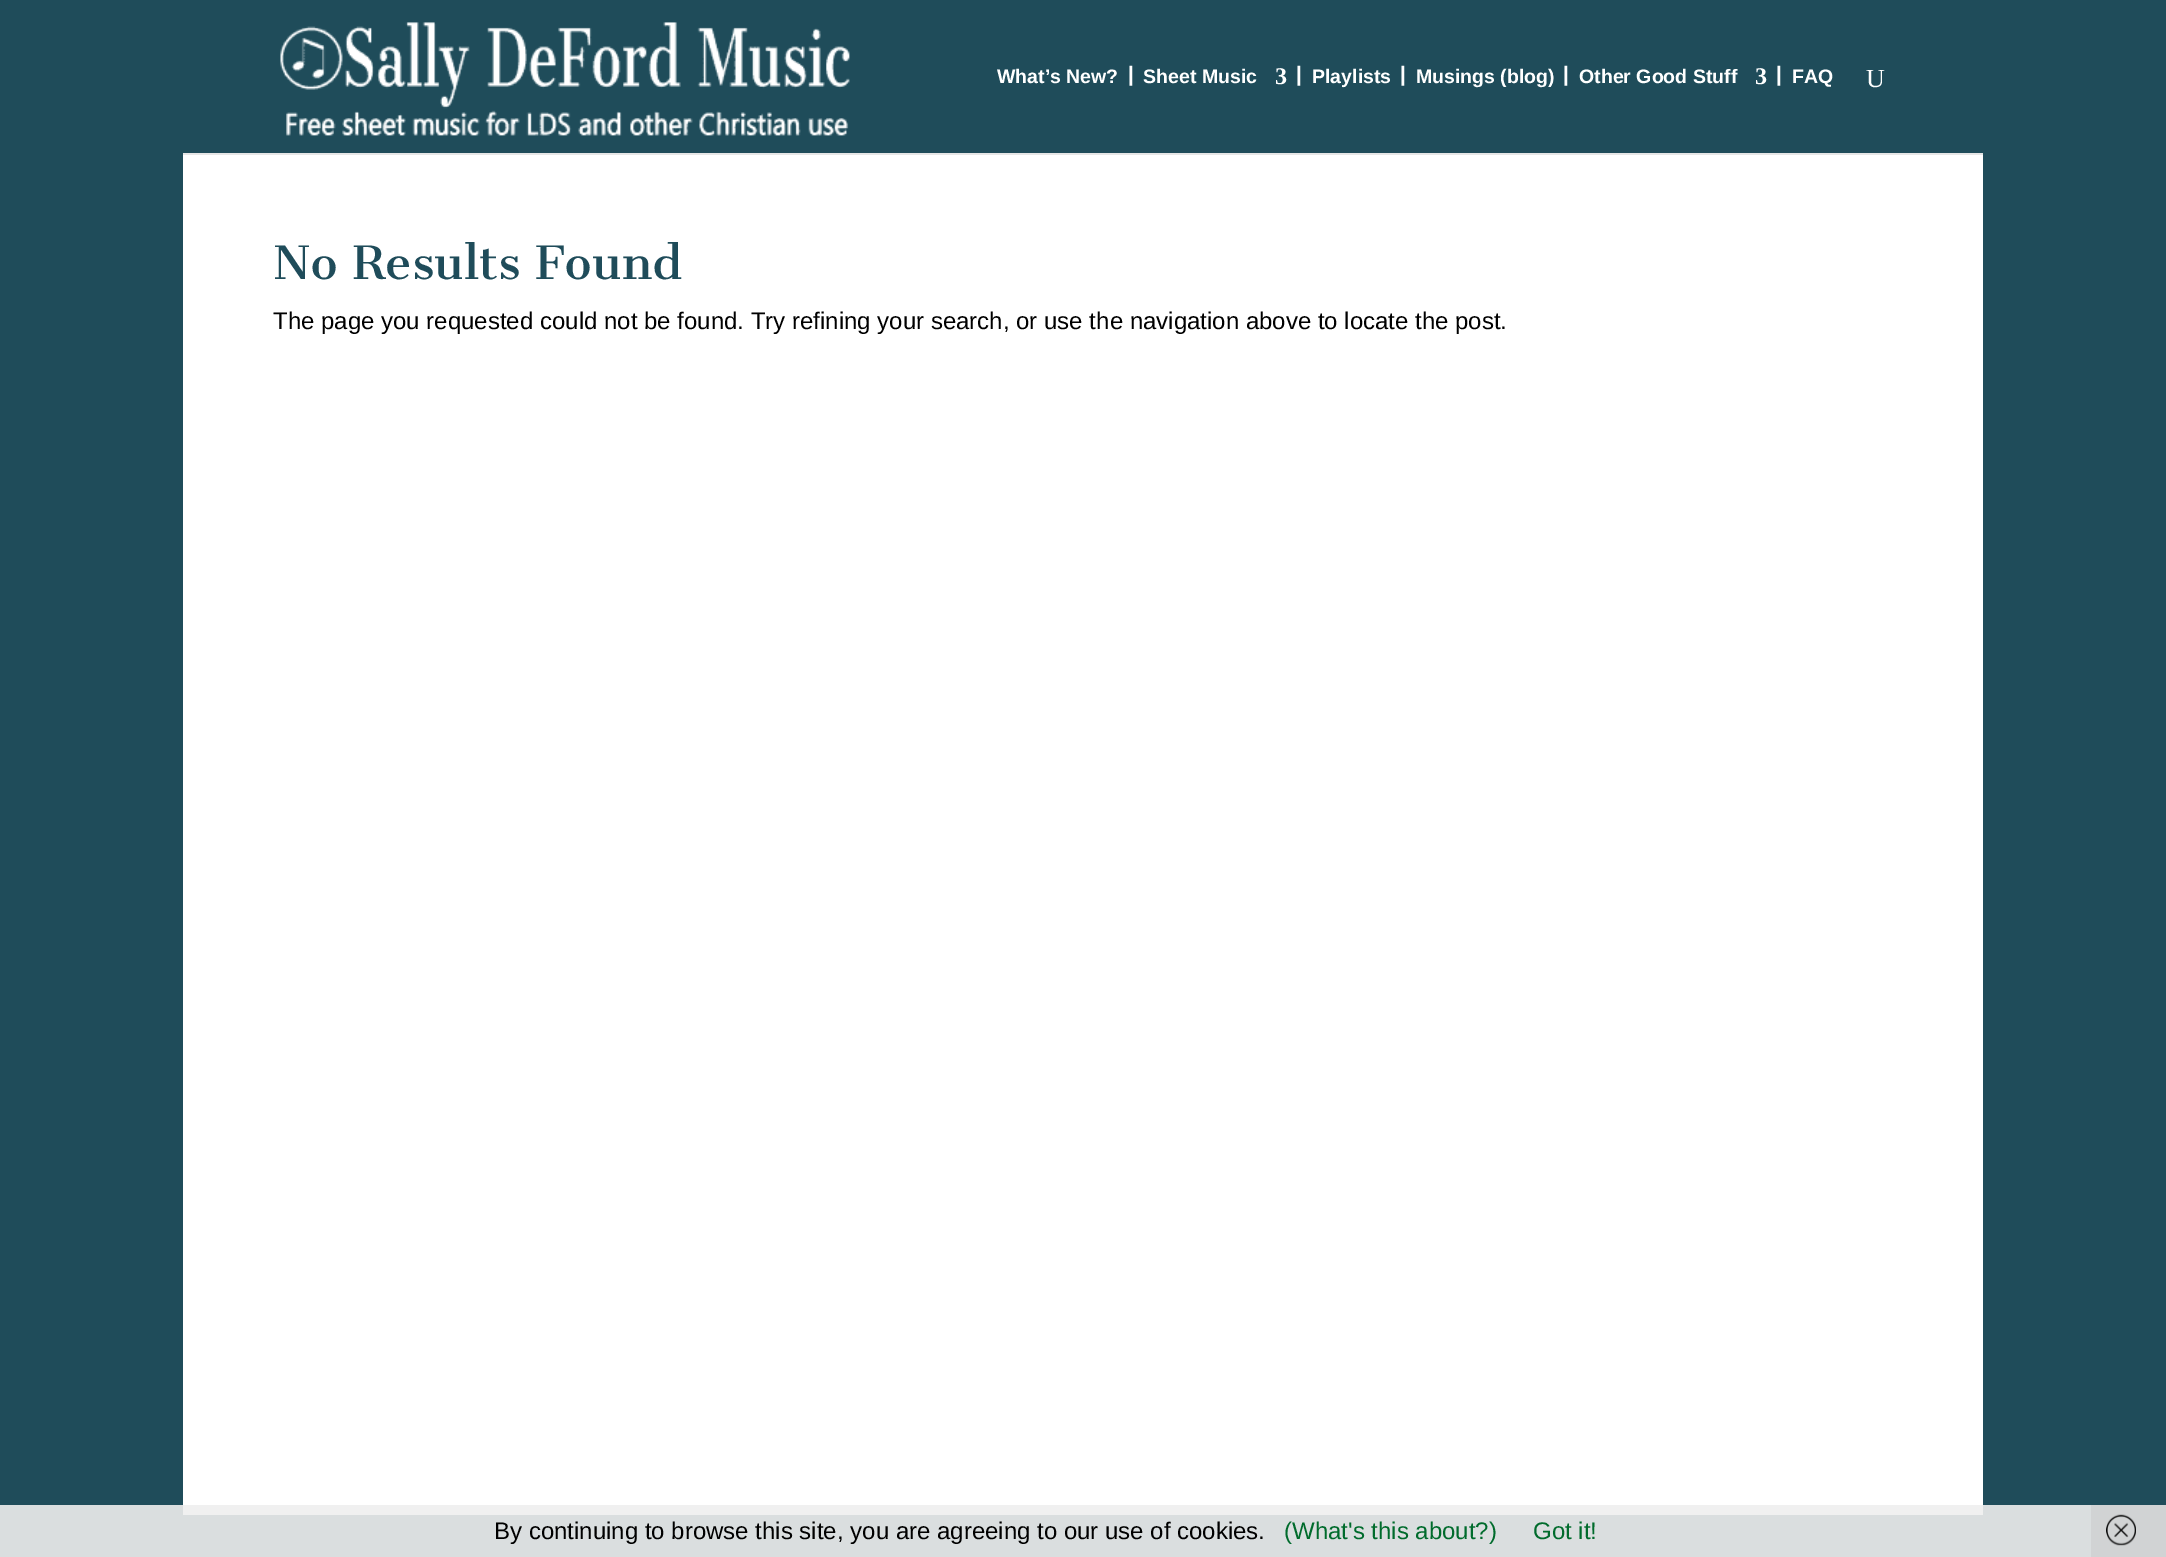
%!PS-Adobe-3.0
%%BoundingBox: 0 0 2166 1557
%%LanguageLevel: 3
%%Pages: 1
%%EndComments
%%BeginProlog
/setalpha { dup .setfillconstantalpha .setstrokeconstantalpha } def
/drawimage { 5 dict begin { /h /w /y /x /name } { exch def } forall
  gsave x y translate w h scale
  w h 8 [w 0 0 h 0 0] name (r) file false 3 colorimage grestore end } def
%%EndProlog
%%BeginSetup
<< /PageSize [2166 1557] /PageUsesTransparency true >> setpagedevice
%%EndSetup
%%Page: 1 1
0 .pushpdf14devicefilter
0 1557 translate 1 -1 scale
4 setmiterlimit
0.122 0.298 0.353 setrgbcolor
0 0 2166 1557 rectfill
0.902 setgray
183 153 1800 2 rectfill
(images/1.raw) 280 22 570 114 drawimage
1 setgray
183 155 1800 1360 rectfill
0.9 setalpha
0.933 setgray
0 1505 2091 52 rectfill
1 setalpha
0.82 0.827 0.831 setrgbcolor
2091 1505 75 52 rectfill
(images/2.raw) 2106 1514 30 32 drawimage
/LiberationSans-Bold [19.5 0 0 -19.5 0 0] selectfont
1 setgray
997 83 moveto (What’s New?) show
/LiberationSans-Bold [21 0 0 -21 0 0] selectfont
1128 81 moveto (|) show
/LiberationSans-Bold [19.5 0 0 -19.5 0 0] selectfont
1143 83 moveto (Sheet Music) show
/LiberationSerif-Bold [24 0 0 -24 0 0] selectfont
1275 84 moveto (3) show
/LiberationSans-Bold [21 0 0 -21 0 0] selectfont
1296 81 moveto (|) show
/LiberationSans-Bold [19.5 0 0 -19.5 0 0] selectfont
1312 83 moveto (Playlists) show
/LiberationSans-Bold [21 0 0 -21 0 0] selectfont
1400 81 moveto (|) show
/LiberationSans-Bold [19.5 0 0 -19.5 0 0] selectfont
1416 83 moveto (Musings \(blog\)) show
/LiberationSans-Bold [21 0 0 -21 0 0] selectfont
1563 81 moveto (|) show
/LiberationSans-Bold [19.5 0 0 -19.5 0 0] selectfont
1579 83 moveto (Other Good Stuff) show
/LiberationSerif-Bold [24 0 0 -24 0 0] selectfont
1755 84 moveto (3) show
/LiberationSans-Bold [21 0 0 -21 0 0] selectfont
1776 81 moveto (|) show
/LiberationSans-Bold [19.5 0 0 -19.5 0 0] selectfont
1792 83 moveto (FAQ) show
/LiberationSerif-Regular [26 0 0 -26 0 0] selectfont
1866 87 moveto (U) show
/CantataOne-Regular [45 0 0 -45 0 0] selectfont
0.122 0.298 0.353 setrgbcolor
273 279 moveto (No Results Found) show
/LiberationSans-Regular [24 0 0 -24 0 0] selectfont
0 setgray
273 329 moveto (The page you requested could not be found. Try refining your search, or use the navigation above to locate the post.) show
494 1539 moveto (By continuing to browse this site, you are agreeing to our use of cookies.) show
0 0.42 0.173 setrgbcolor
1284 1539 moveto (\(What's this about?\)) show
1533 1539 moveto (Got it!) show
.poppdf14devicefilter showpage
%%EOF
